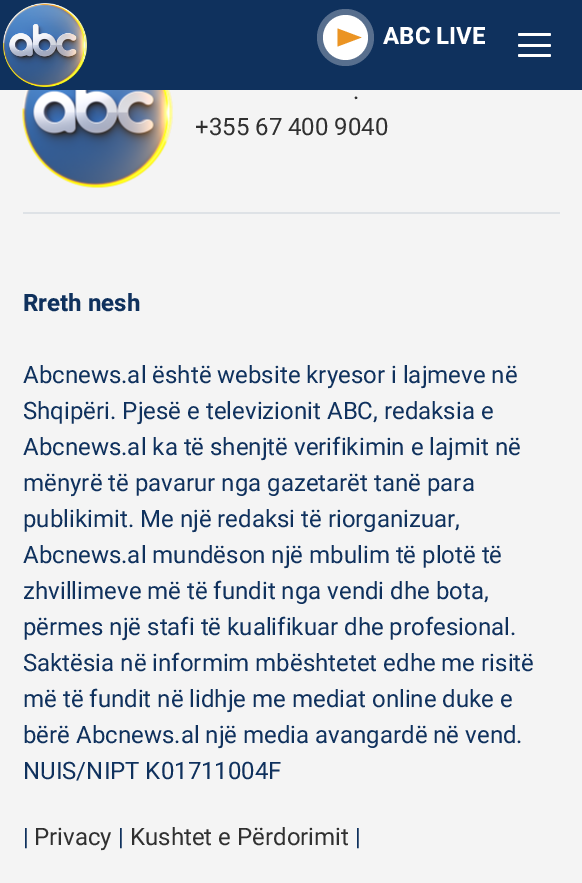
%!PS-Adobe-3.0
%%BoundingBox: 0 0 582 883
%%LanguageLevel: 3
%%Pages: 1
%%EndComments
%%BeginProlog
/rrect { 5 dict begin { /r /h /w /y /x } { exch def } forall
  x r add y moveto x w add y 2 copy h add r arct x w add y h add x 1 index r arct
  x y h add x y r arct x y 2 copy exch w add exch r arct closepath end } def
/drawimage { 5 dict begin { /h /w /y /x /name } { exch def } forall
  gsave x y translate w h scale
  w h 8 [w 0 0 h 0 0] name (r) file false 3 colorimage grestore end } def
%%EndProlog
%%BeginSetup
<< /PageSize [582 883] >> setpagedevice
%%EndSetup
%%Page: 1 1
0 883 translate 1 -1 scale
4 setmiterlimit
0.957 setgray
0 0 582 883 rectfill
0.059 0.192 0.365 setrgbcolor
0 0 582 90 rectfill
(images/1.raw) 3 3 84 84 drawimage
0.345 0.435 0.557 setrgbcolor
newpath 345.5 37.5 28.5 0 360 arc closepath fill
1 setgray
newpath 345.5 37.5 22.5 0 360 arc closepath fill
0.922 0.58 0.137 setrgbcolor
newpath 337.5 46.5 moveto 337.5 28.5 lineto 361.5 37.5 lineto closepath fill
1 setgray
518 33 33 3 1.5 rrect fill
518 44 33 3 1.5 rrect fill
518 54 33 3 1.5 rrect fill
0.871 0.886 0.902 setrgbcolor
23 212 537 2 rectfill
(images/2.raw) 22 90 151 98 drawimage
/Heebo-Bold [24 0 0 -24 0 0] selectfont
1 setgray
383 44 moveto (ABC LIVE) show
/Heebo-Regular [24 0 0 -24 0 0] selectfont
0.188 setgray
353 99 moveto (.) show
195 135 moveto (+355 67 400 9040) show
/Heebo-Bold [24 0 0 -24 0 0] selectfont
0.059 0.192 0.365 setrgbcolor
23 311 moveto (Rreth nesh) show
/Heebo-Regular [24 0 0 -24 0 0] selectfont
23 383 moveto (Abcnews.al është website kryesor i lajmeve në) show
23 419 moveto (Shqipëri. Pjesë e televizionit ABC, redaksia e) show
23 455 moveto (Abcnews.al ka të shenjtë verifikimin e lajmit në) show
23 491 moveto (mënyrë të pavarur nga gazetarët tanë para) show
23 527 moveto (publikimit. Me një redaksi të riorganizuar,) show
23 563 moveto (Abcnews.al mundëson një mbulim të plotë të) show
23 599 moveto (zhvillimeve më të fundit nga vendi dhe bota,) show
23 635 moveto (përmes një stafi të kualifikuar dhe profesional.) show
23 671 moveto (Saktësia në informim mbështetet edhe me risitë) show
23 707 moveto (më të fundit në lidhje me mediat online duke e) show
23 743 moveto (bërë Abcnews.al një media avangardë në vend.) show
23 779 moveto (NUIS/NIPT K01711004F) show
23 845 moveto (|) show
0.188 setgray
34 845 moveto (Privacy) show
0.059 0.192 0.365 setrgbcolor
118 845 moveto (|) show
0.188 setgray
130 845 moveto (Kushtet e Përdorimit) show
0.059 0.192 0.365 setrgbcolor
355 845 moveto (|) show
showpage
%%EOF
